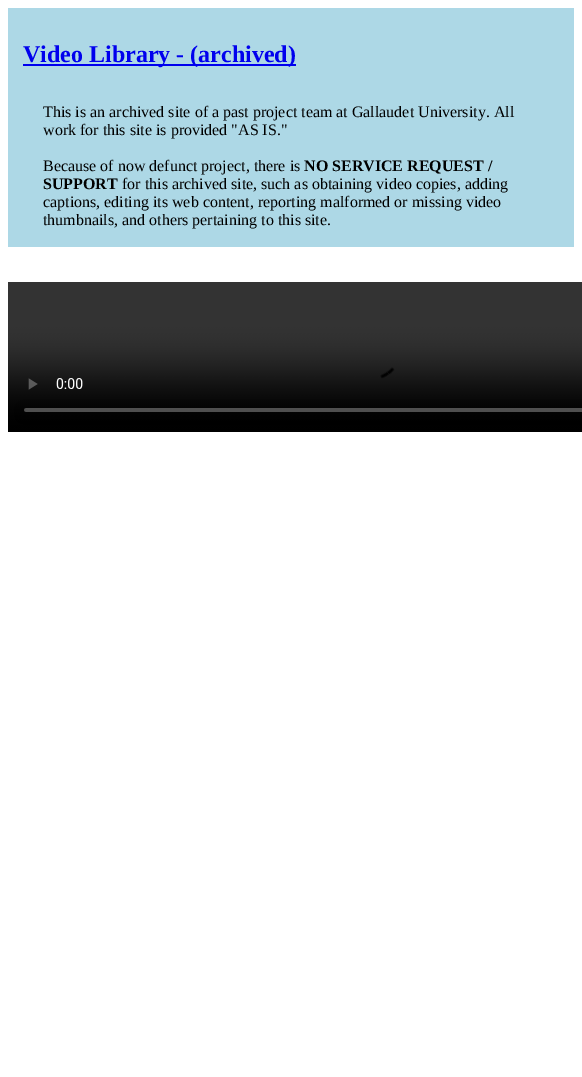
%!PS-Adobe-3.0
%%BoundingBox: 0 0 582 1077
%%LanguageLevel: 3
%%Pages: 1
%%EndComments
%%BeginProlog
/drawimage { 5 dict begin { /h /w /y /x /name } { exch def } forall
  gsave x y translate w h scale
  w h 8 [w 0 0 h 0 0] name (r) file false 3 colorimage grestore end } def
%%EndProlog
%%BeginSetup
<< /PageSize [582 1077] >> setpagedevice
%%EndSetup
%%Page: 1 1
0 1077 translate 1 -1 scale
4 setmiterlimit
1 setgray
0 0 582 1077 rectfill
0.678 0.847 0.902 setrgbcolor
8 8 566 239 rectfill
0 0 0.933 setrgbcolor
23 64 273 2 rectfill
(images/1.raw) 8 282 574 150 drawimage
/LiberationSerif-Bold [24 0 0 -24 0 0] selectfont
23 62 moveto (Video Library - \(archived\)) show
/LiberationSerif-Regular [16 0 0 -16 0 0] selectfont
0 setgray
43 117 moveto (This is an archived site of a past project team at Gallaudet University. All) show
43 135 moveto (work for this site is provided "AS IS.") show
43 171 moveto (Because of now defunct project, there is) show
/LiberationSerif-Bold [16 0 0 -16 0 0] selectfont
304 171 moveto (NO SERVICE REQUEST /) show
43 189 moveto (SUPPORT) show
/LiberationSerif-Regular [16 0 0 -16 0 0] selectfont
122 189 moveto (for this archived site, such as obtaining video copies, adding) show
43 207 moveto (captions, editing its web content, reporting malformed or missing video) show
43 225 moveto (thumbnails, and others pertaining to this site.) show
showpage
%%EOF
